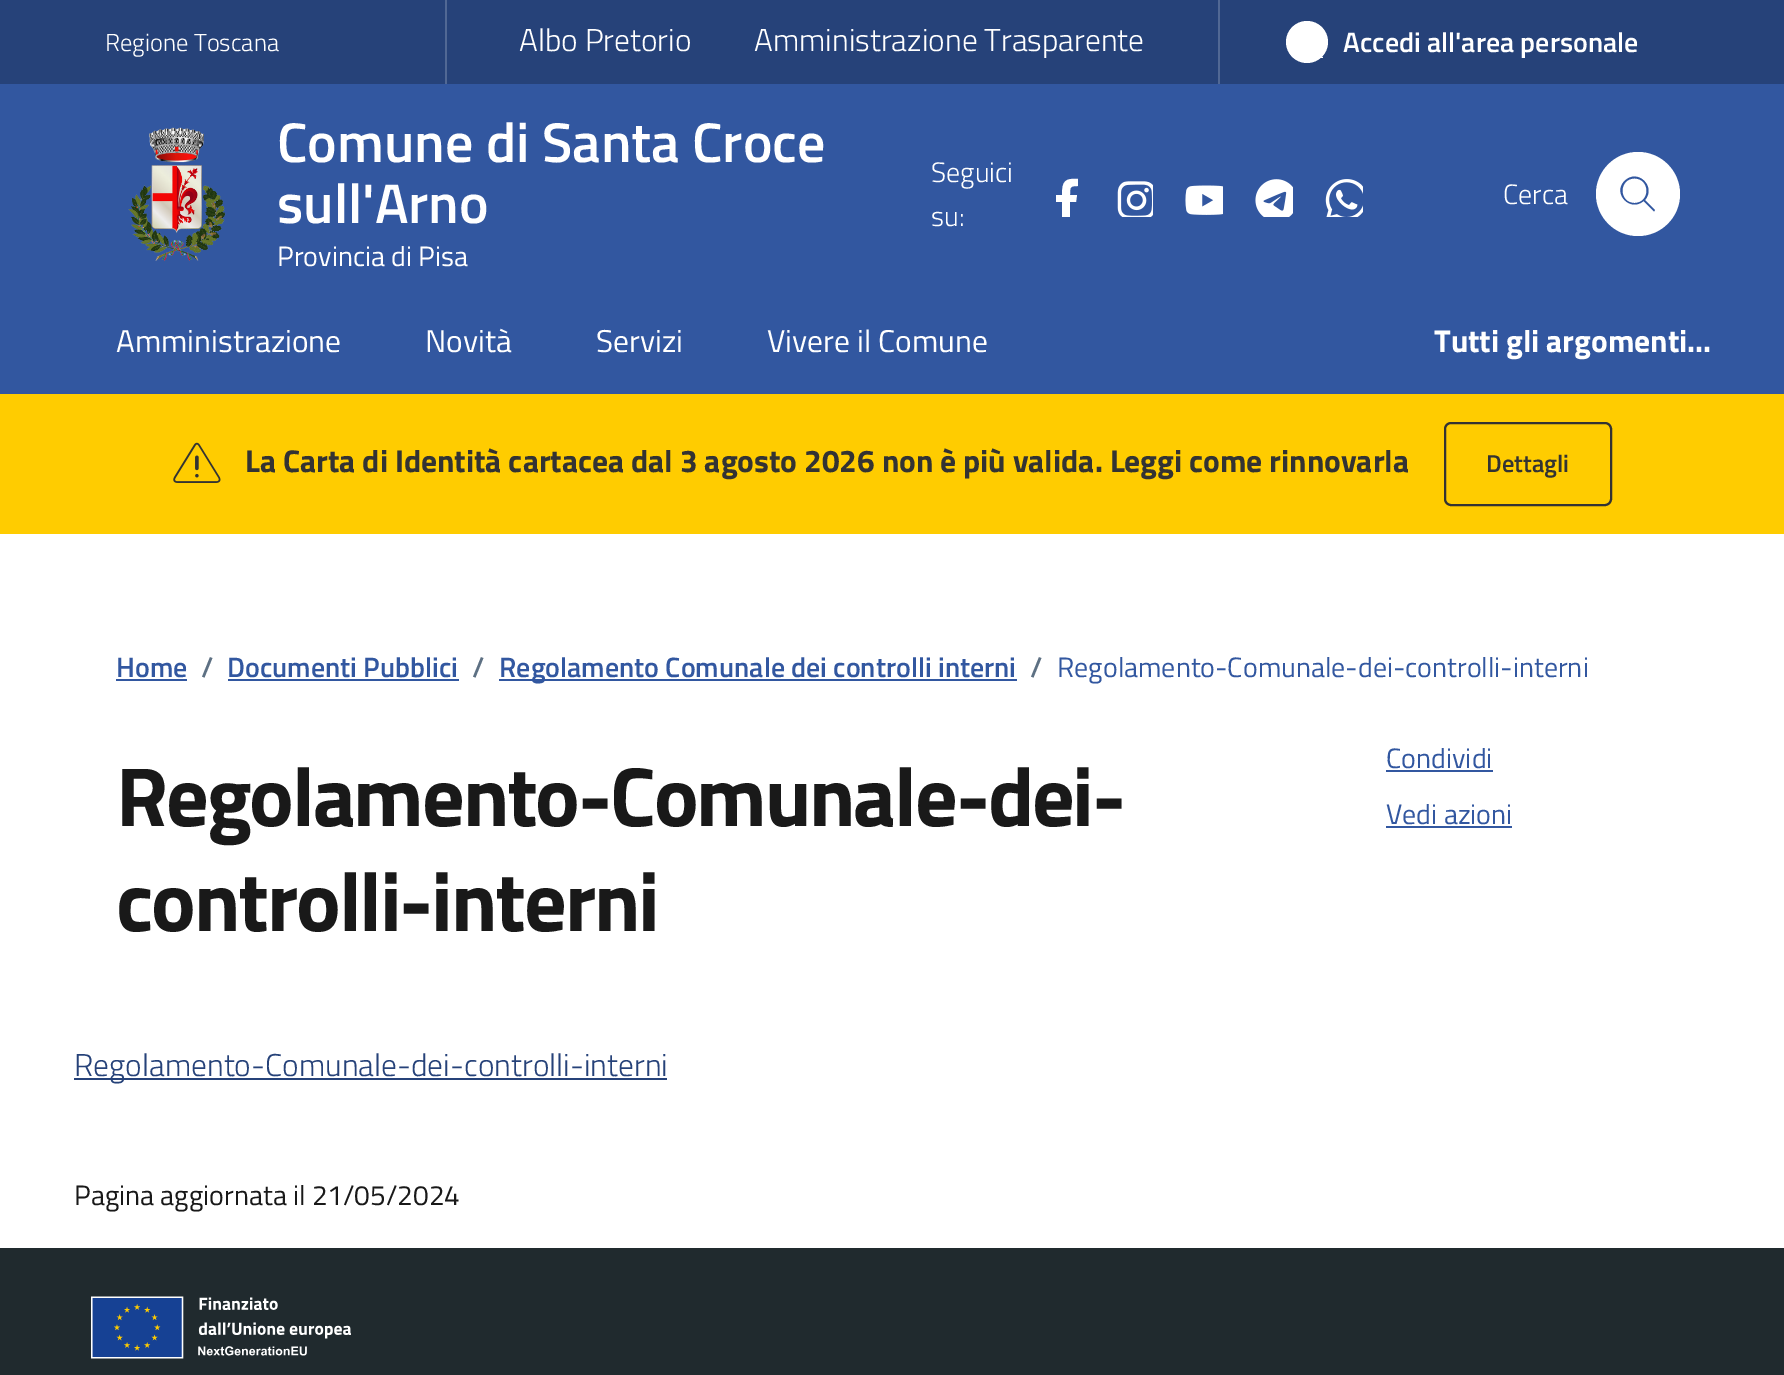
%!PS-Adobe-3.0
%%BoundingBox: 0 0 1784 1375
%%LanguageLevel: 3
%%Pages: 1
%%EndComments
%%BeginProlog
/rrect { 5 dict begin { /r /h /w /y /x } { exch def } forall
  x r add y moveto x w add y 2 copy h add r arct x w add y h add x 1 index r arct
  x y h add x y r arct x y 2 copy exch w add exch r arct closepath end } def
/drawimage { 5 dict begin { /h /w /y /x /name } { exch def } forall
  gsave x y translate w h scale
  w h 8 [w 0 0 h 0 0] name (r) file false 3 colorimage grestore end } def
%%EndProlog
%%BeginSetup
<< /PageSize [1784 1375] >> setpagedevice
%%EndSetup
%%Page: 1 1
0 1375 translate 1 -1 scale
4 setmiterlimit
1 setgray
0 0 1784 1375 rectfill
0.149 0.259 0.475 setrgbcolor
0 0 1784 84 rectfill
0.318 0.408 0.58 setrgbcolor
1218 0 2 84 rectfill
445 0 2 84 rectfill
1 setgray
newpath 1307 42 21 0 360 arc closepath fill
(images/1.raw) 1320 56 3 2 drawimage
0.196 0.341 0.627 setrgbcolor
0 84 1784 310 rectfill
(images/2.raw) 128 127 98 134 drawimage
gsave
1041 175 42 42 rectclip
1 setgray
newpath 1070 221 moveto 1070 202 lineto 1076 202 lineto 1077 195 lineto 1070 195 lineto 1070 187 1070 186 1078 186 curveto 1078 179 lineto 1065 178 1062 181 1062 195 curveto 1056 195 lineto 1056 202 lineto 1062 202 lineto 1062 221 lineto closepath fill
grestore
(images/3.raw) 1117 181 36 36 drawimage
(images/4.raw) 1185 185 38 30 drawimage
(images/5.raw) 1255 179 38 38 drawimage
(images/6.raw) 1325 179 38 38 drawimage
1 setgray
newpath 1638 194 42 0 360 arc closepath fill
0.196 0.341 0.627 setrgbcolor
newpath 1655 210 moveto 1645 200 lineto 1656.5 186.5 1637.5 168 1624.5 181 curveto 1612 193.5 1630.5 212.5 1643.5 201 curveto 1654 211.5 lineto closepath 1634.5 203 moveto 1618.5 203 1618.5 178.5 1634.5 178.5 curveto 1650.5 178.5 1650.5 203 1634.5 203 curveto closepath fill
1 0.8 0 setrgbcolor
0 394 1784 140 rectfill
(images/7.raw) 173 442 48 41 drawimage
0.2 setgray
2 setlinewidth
1445 423 166 82 6 rrect stroke
0.196 0.341 0.627 setrgbcolor
116 679 71 2 rectfill
228 679 231 2 rectfill
499 679 518 2 rectfill
1386 770 107 2 rectfill
1386 826 126 2 rectfill
0.149 0.259 0.475 setrgbcolor
74 1078 593 2 rectfill
0.125 0.165 0.18 setrgbcolor
0 1248 1784 127 rectfill
(images/8.raw) 91 1296 260 63 drawimage
/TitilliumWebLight-Light [24.5 0 0 -24.5 0 0] selectfont
1 setgray
105 51 moveto (Regione Toscana) show
/TitilliumWebLight-Light [31.5 0 0 -31.5 0 0] selectfont
519 51 moveto (Albo Pretorio) show
754 51 moveto (Amministrazione Trasparente) show
/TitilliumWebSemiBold-SemiBold [28 0 0 -28 0 0] selectfont
1343 52 moveto (Accedi all'area personale) show
/TitilliumWebSemiBold-SemiBold [56 0 0 -56 0 0] selectfont
277 162 moveto (Comune di Santa Croce) show
277 223 moveto (sull'Arno) show
/TitilliumWeb-Regular [28 0 0 -28 0 0] selectfont
277 266 moveto (Provincia di Pisa) show
/TitilliumWebLight-Light [28 0 0 -28 0 0] selectfont
931 182 moveto (Seguici) show
931 226 moveto (su:) show
1503 204 moveto (Cerca) show
/TitilliumWeb-Regular [31.5 0 0 -31.5 0 0] selectfont
116 352 moveto (Amministrazione) show
425 352 moveto (Novità) show
596 352 moveto (Servizi) show
767 352 moveto (Vivere il Comune) show
/TitilliumWeb-Bold [31.5 0 0 -31.5 0 0] selectfont
1434 352 moveto (Tutti gli argomenti...) show
0.2 setgray
245 472 moveto (La Carta di Identità cartacea dal 3 agosto 2026 non è più valida. Leggi come rinnovarla) show
/TitilliumWebSemiBold-SemiBold [24.5 0 0 -24.5 0 0] selectfont
1486 472 moveto (Dettagli) show
/TitilliumWebSemiBold-SemiBold [28 0 0 -28 0 0] selectfont
0.196 0.341 0.627 setrgbcolor
116 677 moveto (Home) show
0.365 0.439 0.514 setrgbcolor
201 677 moveto (/) show
0.196 0.341 0.627 setrgbcolor
227 677 moveto (Documenti Pubblici) show
0.365 0.439 0.514 setrgbcolor
472 677 moveto (/) show
0.196 0.341 0.627 setrgbcolor
499 677 moveto (Regolamento Comunale dei controlli interni) show
0.365 0.439 0.514 setrgbcolor
1030 677 moveto (/) show
/TitilliumWeb-Regular [28 0 0 -28 0 0] selectfont
0.196 0.341 0.627 setrgbcolor
1057 677 moveto (Regolamento-Comunale-dei-controlli-interni) show
/TitilliumWeb-Bold [84 0 0 -84 0 0] selectfont
0.098 setgray
116 826 moveto -2.1 0 (Regolamento-Comunale-dei-) ashow
116 931 moveto -2.1 0 (controlli-interni) ashow
/TitilliumWeb-Regular [28 0 0 -28 0 0] selectfont
0.196 0.341 0.627 setrgbcolor
1386 768 moveto (Condividi) show
1386 824 moveto (Vedi azioni) show
/TitilliumWebLight-Light [31.5 0 0 -31.5 0 0] selectfont
0.149 0.259 0.475 setrgbcolor
74 1076 moveto (Regolamento-Comunale-dei-controlli-interni) show
/TitilliumWeb-Regular [28 0 0 -28 0 0] selectfont
0.098 setgray
74 1205 moveto (Pagina aggiornata il 21/05/2024) show
showpage
%%EOF
